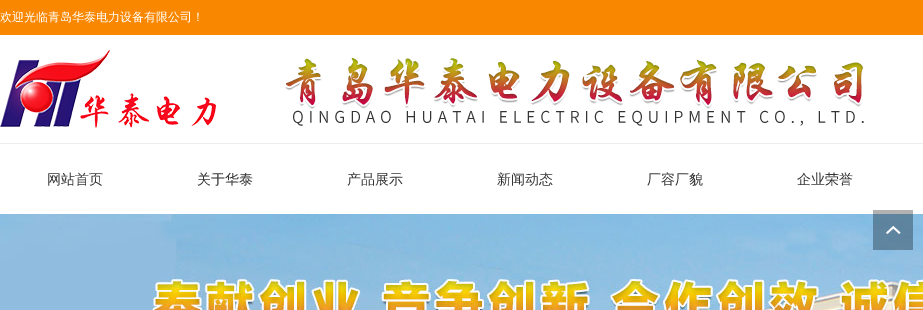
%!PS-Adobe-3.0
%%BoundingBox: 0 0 923 310
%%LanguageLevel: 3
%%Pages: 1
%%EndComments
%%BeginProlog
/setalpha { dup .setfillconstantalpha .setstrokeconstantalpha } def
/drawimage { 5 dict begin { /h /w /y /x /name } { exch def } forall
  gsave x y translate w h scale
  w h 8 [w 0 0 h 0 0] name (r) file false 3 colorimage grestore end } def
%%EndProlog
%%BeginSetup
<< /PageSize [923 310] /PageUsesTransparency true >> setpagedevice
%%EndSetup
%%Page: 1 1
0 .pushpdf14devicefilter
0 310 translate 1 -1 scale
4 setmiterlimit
1 setgray
0 0 923 310 rectfill
0.976 0.529 0 setrgbcolor
0 0 923 35 rectfill
(images/1.raw) 0 50 864 78 drawimage
0.929 setgray
0 143 923 1 rectfill
(images/2.raw) 0 214 923 96 drawimage
0.3 setalpha
0 setgray
873 210 40 40 rectfill
1 setalpha
(images/3.raw) 886 226 15 8 drawimage
/WenQuanYiZenHei-Medium [12 0 0 -12 0 0] selectfont
1 setgray
0 21 moveto (欢迎光临青岛华泰电力设备有限公司！) show
/WenQuanYiZenHei-Medium [14 0 0 -14 0 0] selectfont
0.2 setgray
47 184 moveto (网站首页) show
197 184 moveto (关于华泰) show
347 184 moveto (产品展示) show
497 184 moveto (新闻动态) show
647 184 moveto (厂容厂貌) show
797 184 moveto (企业荣誉) show
.poppdf14devicefilter showpage
%%EOF
